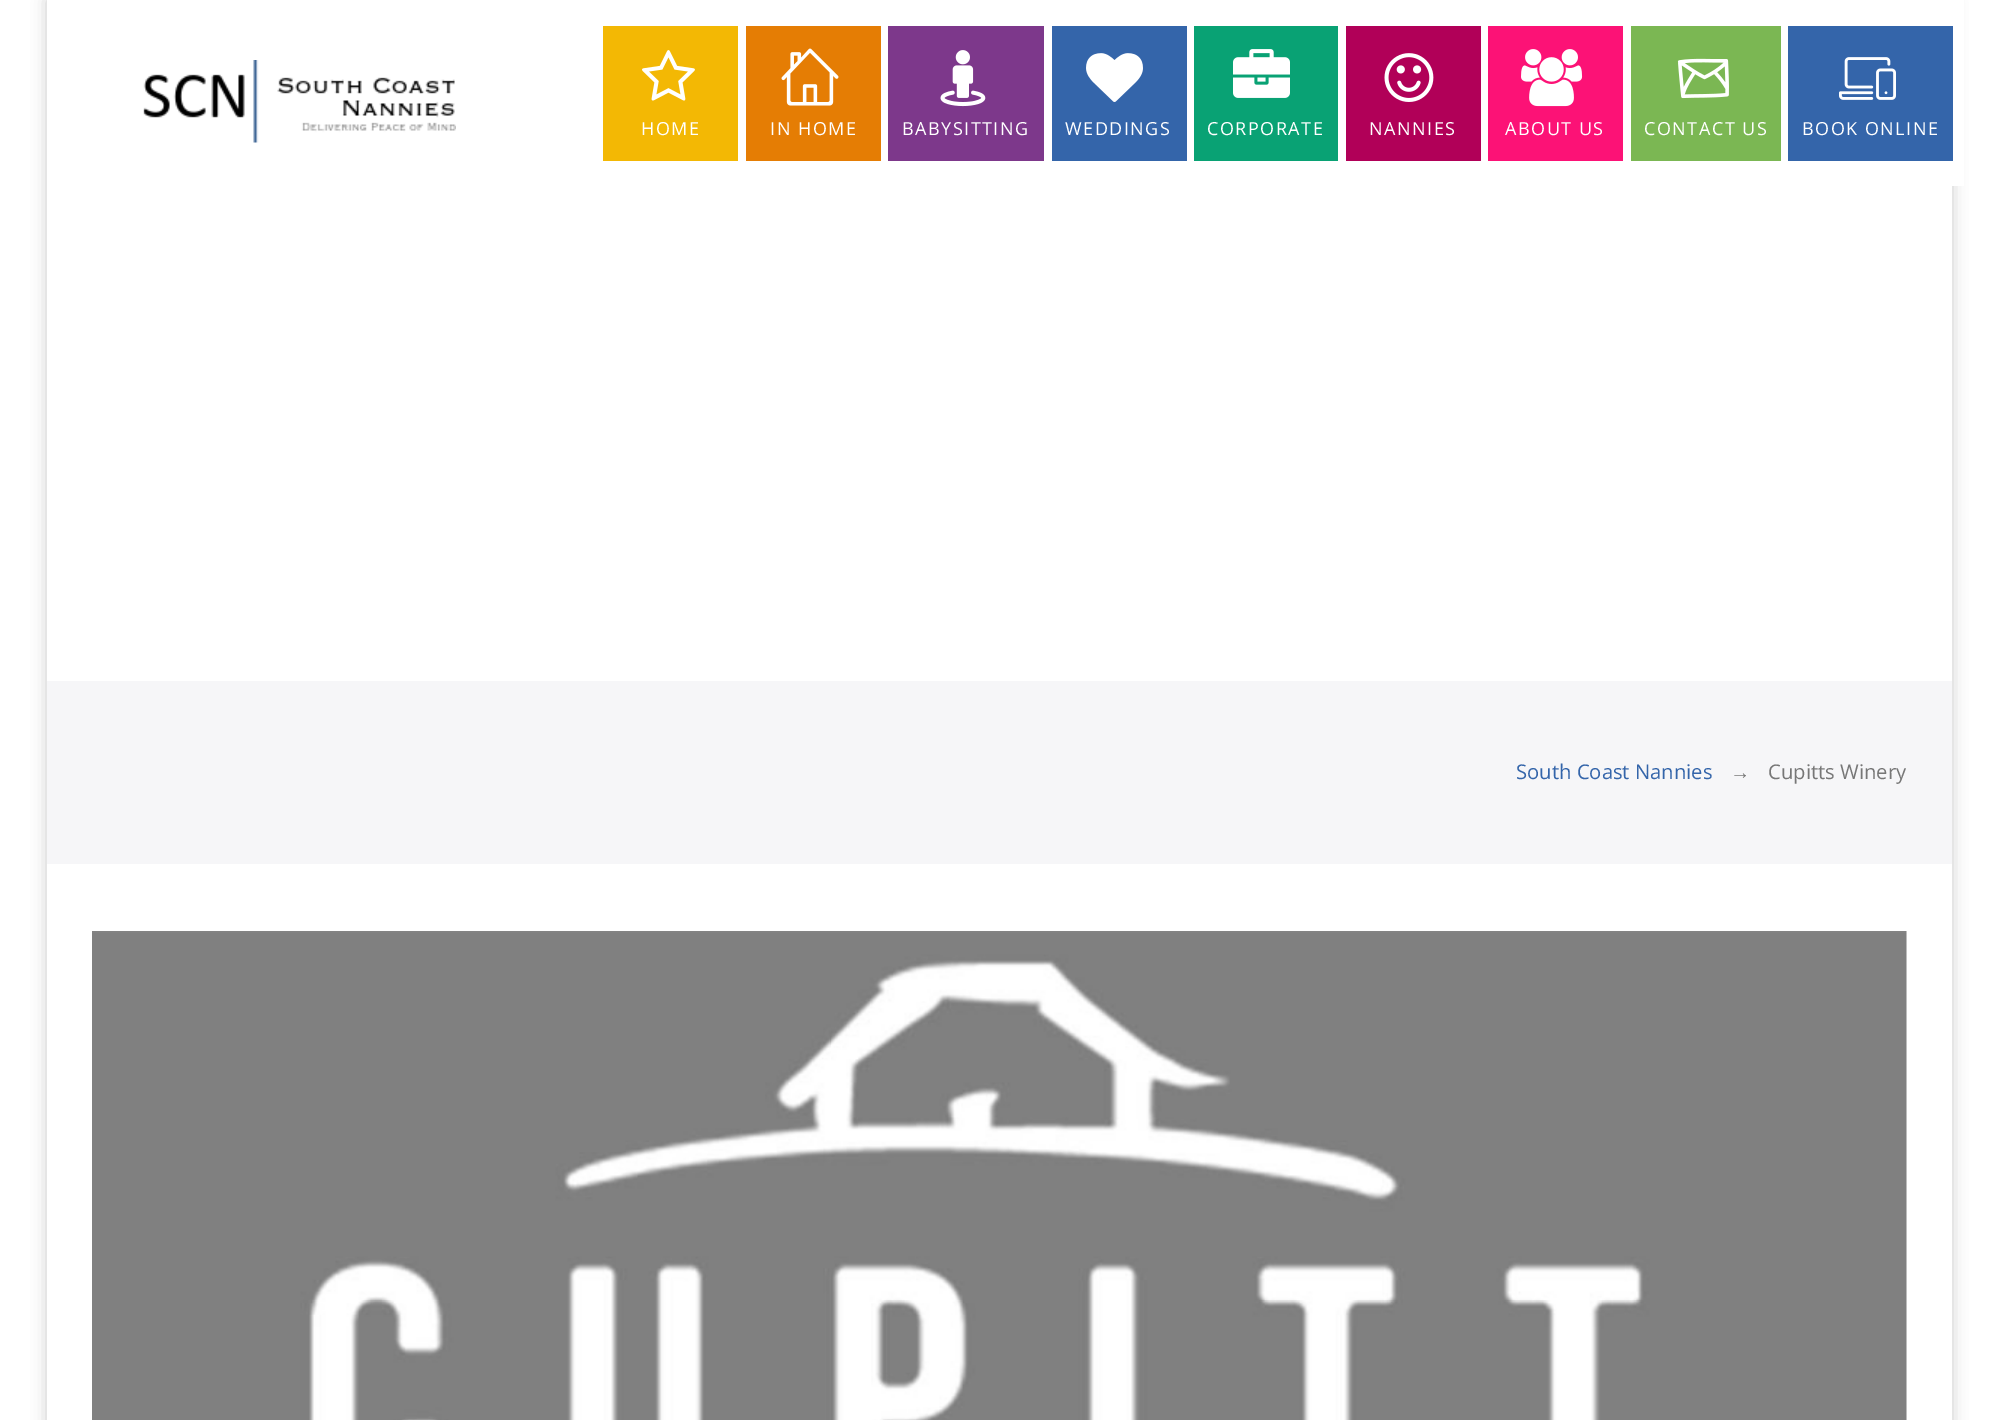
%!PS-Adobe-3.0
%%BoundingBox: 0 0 1998 1420
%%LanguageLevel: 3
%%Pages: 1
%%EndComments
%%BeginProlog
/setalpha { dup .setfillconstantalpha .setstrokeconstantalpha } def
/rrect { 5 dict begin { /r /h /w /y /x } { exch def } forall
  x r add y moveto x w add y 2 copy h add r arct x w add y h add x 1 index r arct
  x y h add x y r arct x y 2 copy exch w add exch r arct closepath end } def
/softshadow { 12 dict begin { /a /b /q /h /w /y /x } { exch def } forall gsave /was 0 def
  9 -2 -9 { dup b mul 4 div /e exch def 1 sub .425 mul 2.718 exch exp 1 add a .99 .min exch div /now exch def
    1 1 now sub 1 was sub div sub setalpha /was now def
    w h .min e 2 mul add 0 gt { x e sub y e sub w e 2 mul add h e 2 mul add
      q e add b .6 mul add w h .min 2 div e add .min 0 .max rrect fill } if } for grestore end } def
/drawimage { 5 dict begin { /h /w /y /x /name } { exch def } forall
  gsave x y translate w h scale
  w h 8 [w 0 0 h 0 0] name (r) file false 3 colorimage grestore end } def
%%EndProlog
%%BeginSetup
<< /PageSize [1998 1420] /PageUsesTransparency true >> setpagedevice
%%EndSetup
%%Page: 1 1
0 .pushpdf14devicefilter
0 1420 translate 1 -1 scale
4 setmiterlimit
1 setgray
0 0 1998 1420 rectfill
0 setgray
47 0 1905 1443 0 7.5 0.2 softshadow
1 setgray
47 186 1905 1234 rectfill
47 0 1917 186 rectfill
(images/1.raw) 143 60 313 83 drawimage
0.953 0.722 0.016 setrgbcolor
603 26 135 135 rectfill
(images/2.raw) 642 50 53 51 drawimage
0.898 0.49 0.016 setrgbcolor
746 26 135 135 rectfill
(images/3.raw) 781 48 58 58 drawimage
0.49 0.22 0.545 setrgbcolor
888 26 156 135 rectfill
(images/4.raw) 940 50 46 57 drawimage
0.204 0.396 0.667 setrgbcolor
1052 26 135 135 rectfill
(images/5.raw) 1086 53 57 49 drawimage
0.035 0.635 0.455 setrgbcolor
1194 26 144 135 rectfill
(images/6.raw) 1233 49 57 49 drawimage
0.694 0 0.345 setrgbcolor
1346 26 135 135 rectfill
(images/7.raw) 1384 53 50 49 drawimage
0.988 0.071 0.463 setrgbcolor
1488 26 135 135 rectfill
(images/8.raw) 1521 49 62 58 drawimage
0.482 0.718 0.325 setrgbcolor
1631 26 150 135 rectfill
(images/9.raw) 1677 58 52 41 drawimage
0.204 0.396 0.667 setrgbcolor
1788 26 165 135 rectfill
(images/10.raw) 1839 57 57 43 drawimage
0.965 0.965 0.973 setrgbcolor
47 681 1905 183 rectfill
(images/11.raw) 92 931 1815 489 drawimage
/OpenSans-Regular [18 0 0 -18 0 0] selectfont
1 setgray
641 135 moveto 1.5 0 (HOME) ashow
770 135 moveto 1.5 0 (IN HOME) ashow
902 135 moveto 1.5 0 (BABYSITTING) ashow
1065 135 moveto 1.5 0 (WEDDINGS) ashow
1207 135 moveto 1.5 0 (CORPORATE) ashow
1369 135 moveto 1.5 0 (NANNIES) ashow
1505 135 moveto 1.5 0 (ABOUT US) ashow
1644 135 moveto 1.5 0 (CONTACT US) ashow
1802 135 moveto 1.5 0 (BOOK ONLINE) ashow
/OpenSans-Regular [20.25 0 0 -20.25 0 0] selectfont
0.204 0.396 0.667 setrgbcolor
1516 779 moveto (South Coast Nannies) show
/LiberationSerif-Regular [20.25 0 0 -20.25 0 0] selectfont
0.467 setgray
1730 779 moveto (→) show
/OpenSans-Regular [20.25 0 0 -20.25 0 0] selectfont
1768 779 moveto (Cupitts Winery) show
.poppdf14devicefilter showpage
%%EOF
